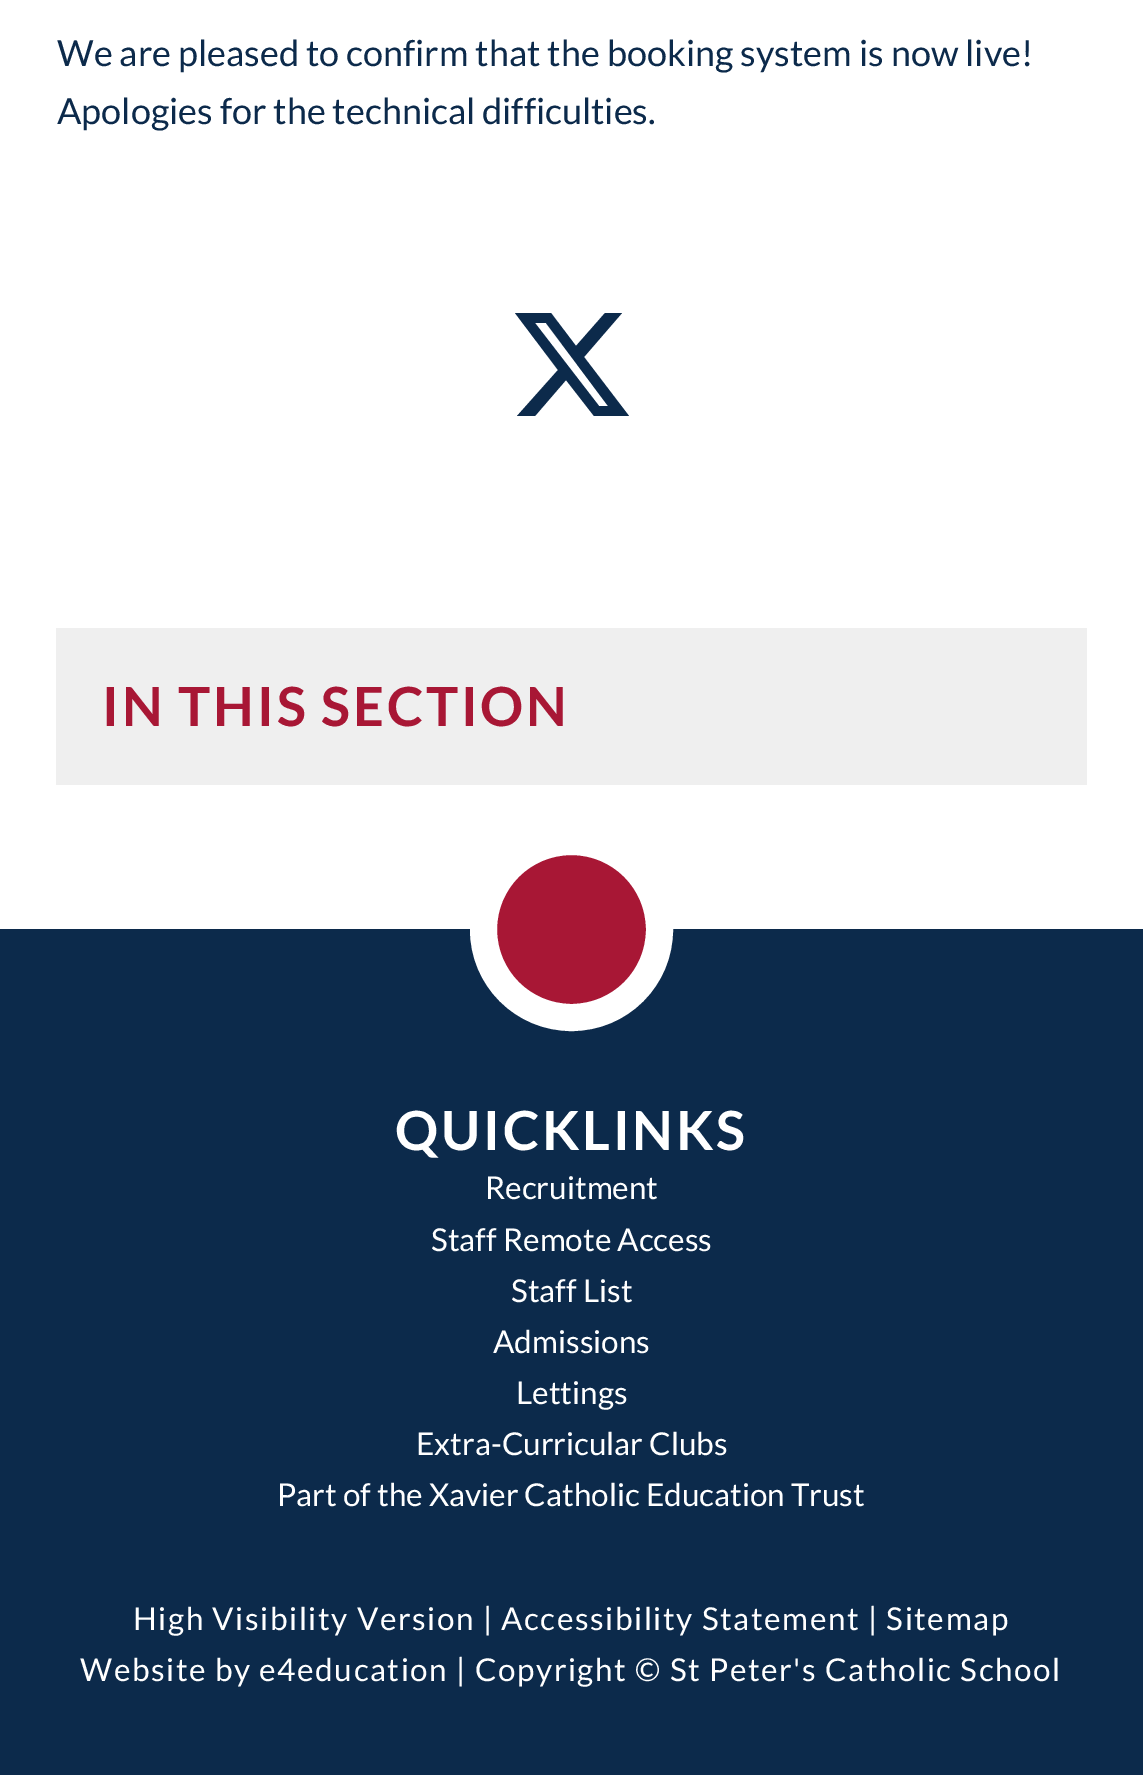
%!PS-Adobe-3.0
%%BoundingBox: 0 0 1143 1775
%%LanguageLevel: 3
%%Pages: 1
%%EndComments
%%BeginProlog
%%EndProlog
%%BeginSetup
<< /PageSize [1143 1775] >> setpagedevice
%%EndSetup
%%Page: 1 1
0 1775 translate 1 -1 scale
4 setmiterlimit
1 setgray
0 0 1143 1775 rectfill
0.047 0.165 0.294 setrgbcolor
newpath 605 313 moveto 622 313 lineto 584 357 lineto 629 416 lineto 594 416 lineto 566 380 lineto 535 416 lineto 517 416 lineto 558 370 lineto 515 313 lineto 551 313 lineto 576 346 lineto closepath 599 406 moveto 608 406 lineto 546 323 lineto 535 323 lineto closepath fill
0.937 setgray
56 628 1031 157 rectfill
0.047 0.165 0.294 setrgbcolor
0 929 1143 846 rectfill
0.659 0.09 0.208 setrgbcolor
newpath 571.5 929.5 88 0 360 arc closepath gsave fill grestore
1 setgray
27 setlinewidth
stroke
/Lato-Regular [36 0 0 -36 0 0] selectfont
0.047 0.165 0.294 setrgbcolor
57 66 moveto (We are pleased to confirm that the booking system is now live!) show
57 124 moveto (Apologies for the technical difficulties.) show
/Lato-Bold [54 0 0 -54 0 0] selectfont
0.659 0.09 0.208 setrgbcolor
102 726 moveto 2.75 0 (IN THIS SECTION) ashow
1 setgray
395 1150 moveto 2.75 0 (QUICKLINKS) ashow
/Lato-Regular [31.5 0 0 -31.5 0 0] selectfont
485 1199 moveto (Recruitment) show
431 1251 moveto (Staff Remote Access) show
511 1302 moveto (Staff List) show
493 1353 moveto (Admissions) show
516 1404 moveto (Lettings) show
416 1455 moveto (Extra-Curricular Clubs) show
277 1506 moveto (Part of the Xavier Catholic Education Trust) show
133 1630 moveto 1.57 0 (High Visibility Version | Accessibility Statement | Sitemap) ashow
80 1681 moveto 1.57 0 (Website by e4education | Copyright © St Peter's Catholic School) ashow
showpage
%%EOF
